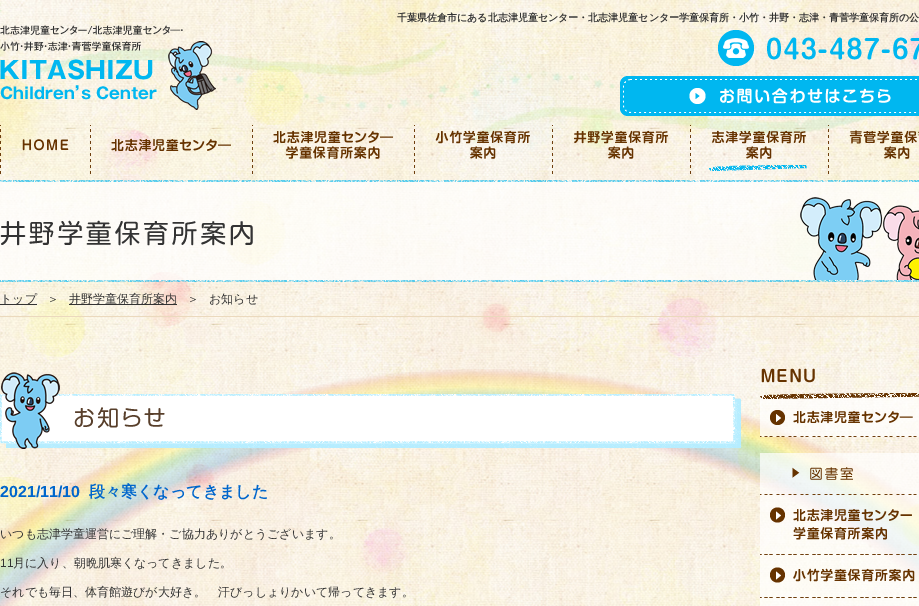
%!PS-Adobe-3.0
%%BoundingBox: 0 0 919 606
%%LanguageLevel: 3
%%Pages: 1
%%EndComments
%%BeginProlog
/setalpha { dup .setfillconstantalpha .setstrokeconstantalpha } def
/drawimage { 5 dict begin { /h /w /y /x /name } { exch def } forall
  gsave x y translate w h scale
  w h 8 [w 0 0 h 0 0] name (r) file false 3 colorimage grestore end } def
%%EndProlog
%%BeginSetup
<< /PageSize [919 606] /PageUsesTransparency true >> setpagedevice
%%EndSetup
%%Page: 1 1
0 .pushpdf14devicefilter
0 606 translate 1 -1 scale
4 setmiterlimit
1 setgray
0 0 919 606 rectfill
(images/1.raw) 0 0 919 606 drawimage
(images/2.raw) 0 25 216 85 drawimage
(images/3.raw) 718 30 201 36 drawimage
(images/4.raw) 620 76 299 40 drawimage
(images/5.raw) 0 125 91 49 drawimage
(images/6.raw) 111 125 142 49 drawimage
(images/7.raw) 273 125 142 49 drawimage
(images/8.raw) 435 125 118 49 drawimage
(images/9.raw) 574 125 117 49 drawimage
(images/10.raw) 709 125 120 49 drawimage
(images/11.raw) 849 130 70 29 drawimage
(images/12.raw) 0 180 919 102 drawimage
(images/13.raw) 0 220 253 26 drawimage
(images/14.raw) 800 197 119 83 drawimage
0.922 0.851 0.741 setrgbcolor
0 316 919 1 rectfill
0.2 setgray
0 304 37 1 rectfill
69 304 108 1 rectfill
(images/15.raw) 0 369 919 237 drawimage
(images/16.raw) 0 372 741 77 drawimage
(images/17.raw) 760 368 159 31 drawimage
(images/18.raw) 760 399 159 38 drawimage
(images/19.raw) 760 453 159 42 drawimage
(images/20.raw) 760 495 159 60 drawimage
(images/21.raw) 760 555 159 43 drawimage
0.7 setalpha
1 setgray
760 598 159 8 rectfill
/WenQuanYiZenHei-Bold [10 0 0 -10 0 0] selectfont
1 setalpha
0.2 setgray
397 21 moveto (千葉県佐倉市にある北志津児童センター・北志津児童センター学童保育所・小竹・井野・志津・青菅学童保育所の公) show
/WenQuanYiZenHei-Medium [12 0 0 -12 0 0] selectfont
0 303 moveto (トップ) show
47 303 moveto (＞) show
69 303 moveto (井野学童保育所案内) show
187 303 moveto (＞) show
209 303 moveto (お知らせ) show
/LiberationSans-Bold [16 0 0 -16 0 0] selectfont
0 0.4 0.8 setrgbcolor
0 497 moveto (2021/11/10) show
/WenQuanYiZenHei-Bold [16 0 0 -16 0 0] selectfont
89 497 moveto (段々寒くなってきました) show
/WenQuanYiZenHei-Medium [12 0 0 -12 0 0] selectfont
0.2 setgray
0 538 moveto (いつも志津学童運営にご理解・ご協力ありがとうございます。) show
/LiberationSans-Regular [12 0 0 -12 0 0] selectfont
0 567 moveto (11) show
/WenQuanYiZenHei-Medium [12 0 0 -12 0 0] selectfont
13 567 moveto (月に入り、朝晩肌寒くなってきました。) show
0 596 moveto (それでも毎日、体育館遊びが大好き。　汗びっしょりかいて帰ってきます。) show
.poppdf14devicefilter showpage
%%EOF
